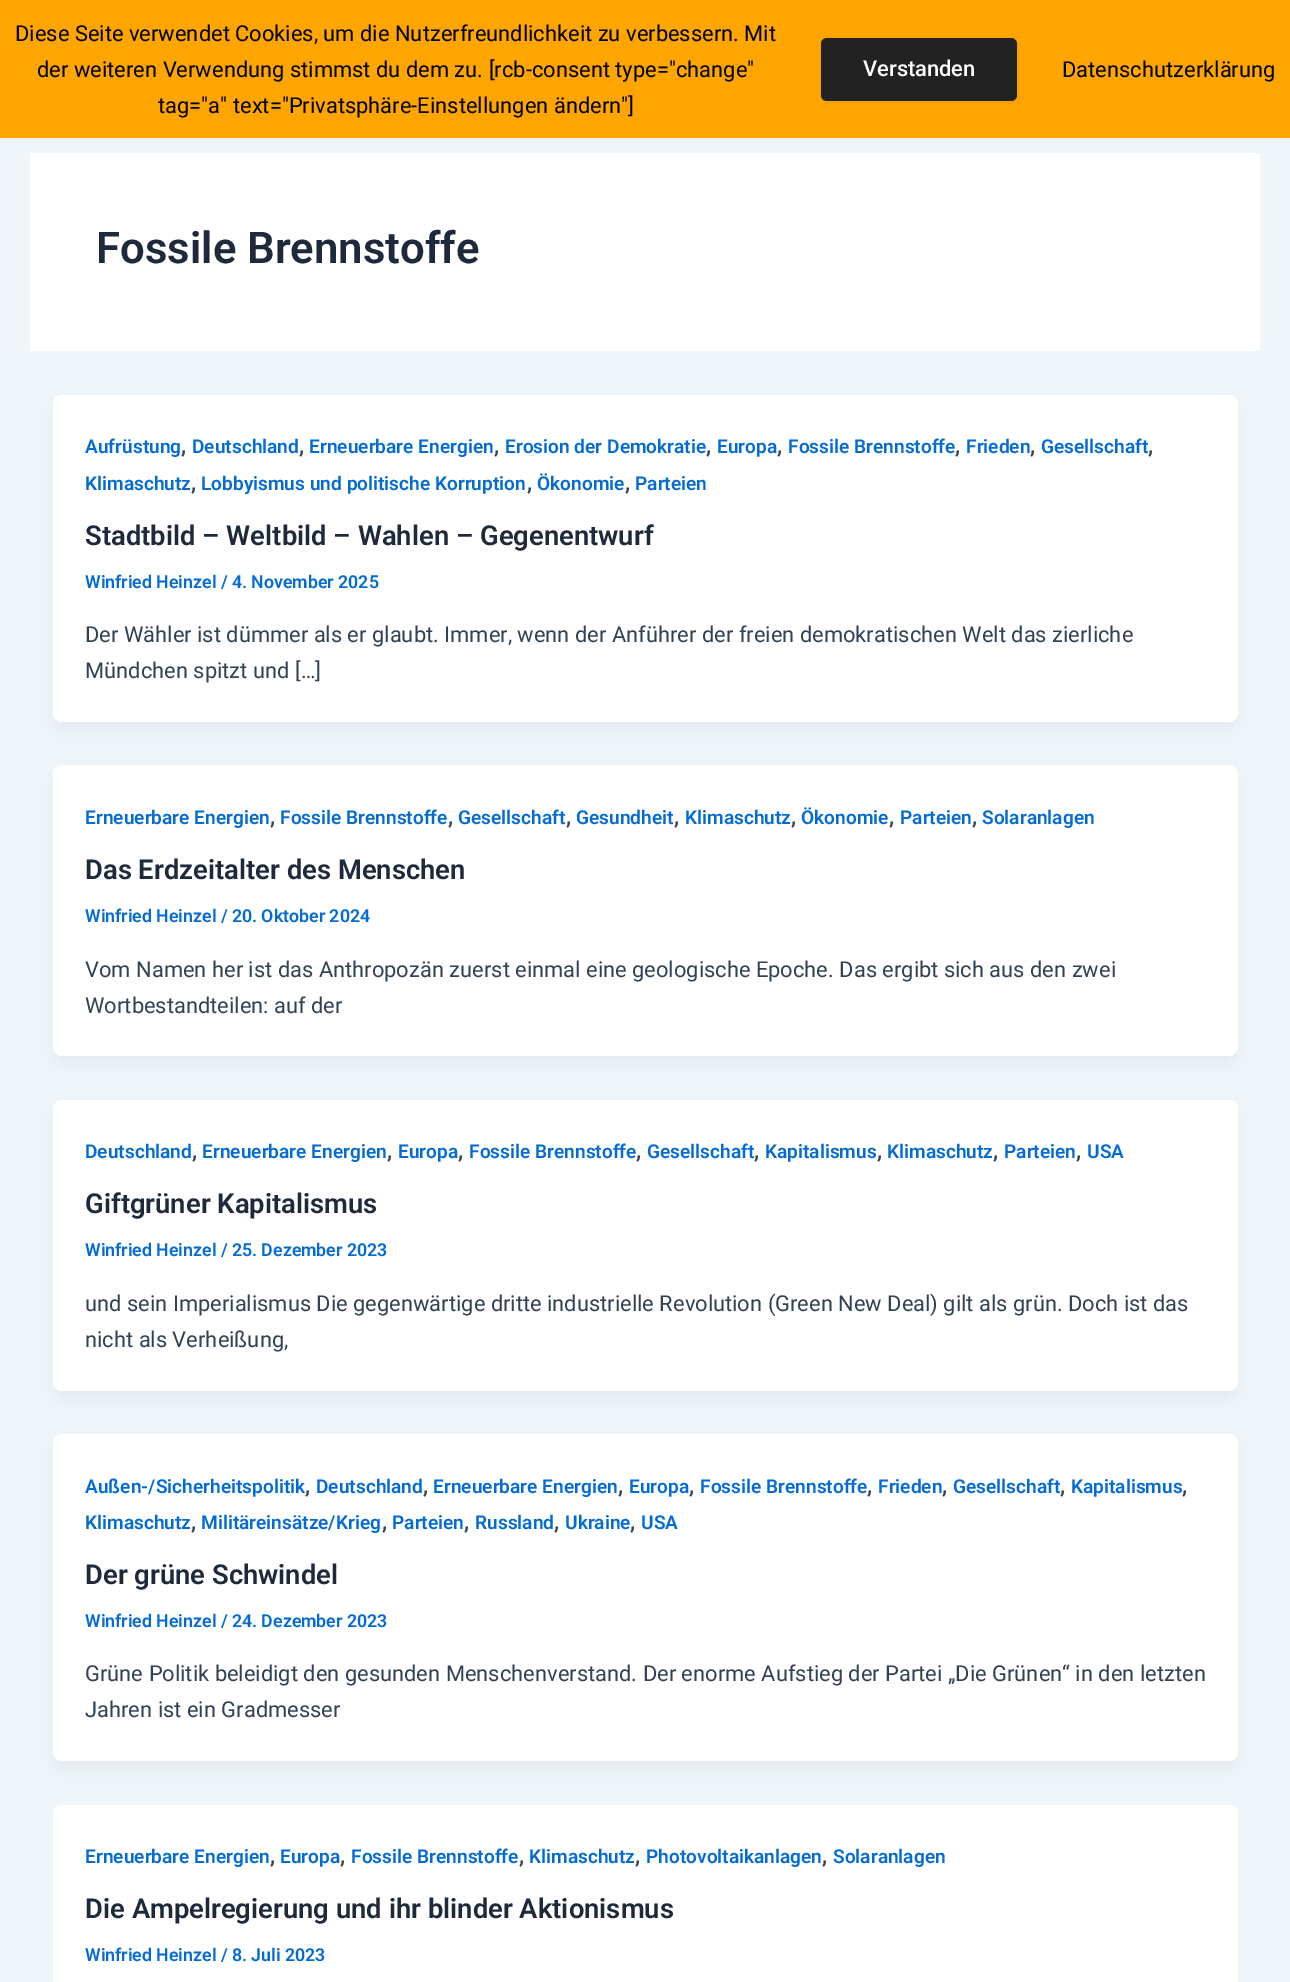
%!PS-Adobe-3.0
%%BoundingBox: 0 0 1290 1982
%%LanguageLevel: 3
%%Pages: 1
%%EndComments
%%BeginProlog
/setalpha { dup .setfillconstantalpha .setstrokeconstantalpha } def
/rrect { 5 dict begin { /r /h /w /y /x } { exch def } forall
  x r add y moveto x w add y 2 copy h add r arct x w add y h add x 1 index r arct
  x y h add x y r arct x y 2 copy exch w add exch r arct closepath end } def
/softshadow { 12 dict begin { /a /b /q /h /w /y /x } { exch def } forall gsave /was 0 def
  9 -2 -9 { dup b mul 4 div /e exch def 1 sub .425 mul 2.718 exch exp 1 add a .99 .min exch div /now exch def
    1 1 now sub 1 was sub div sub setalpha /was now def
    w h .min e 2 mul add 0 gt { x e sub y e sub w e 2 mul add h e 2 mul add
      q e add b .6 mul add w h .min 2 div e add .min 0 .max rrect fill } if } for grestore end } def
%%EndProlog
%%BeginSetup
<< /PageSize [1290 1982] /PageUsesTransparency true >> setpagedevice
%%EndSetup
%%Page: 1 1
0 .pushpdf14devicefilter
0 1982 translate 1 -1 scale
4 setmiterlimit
0.941 0.961 0.98 setrgbcolor
0 0 1290 1982 rectfill
1 0.647 0 setrgbcolor
0 0 1290 138 rectfill
0 setgray
821 39 196 63 6 1.5 0.05 softshadow
0.133 setgray
821 38 196 63 6 rrect fill
1 setgray
30 153 1230 198 rectfill
0.063 0.094 0.157 setrgbcolor
56 407 1179 321 6 11 0.05 softshadow
1 setgray
53 395 1185 327 9 rrect fill
0.063 0.094 0.157 setrgbcolor
56 777 1179 285 6 11 0.05 softshadow
1 setgray
53 765 1185 291 9 rrect fill
0.063 0.094 0.157 setrgbcolor
56 1112 1179 285 6 11 0.05 softshadow
1 setgray
53 1100 1185 291 9 rrect fill
0.063 0.094 0.157 setrgbcolor
56 1446 1179 321 6 11 0.05 softshadow
1 setgray
53 1434 1185 327 9 rrect fill
53 1805 1185 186 9 rrect fill
/Roboto-Regular [21.9 0 0 -21.9 0 0] selectfont
0 setgray
15 41 moveto (Diese Seite verwendet Cookies, um die Nutzerfreundlichkeit zu verbessern. Mit) show
37 77 moveto (der weiteren Verwendung stimmst du dem zu. [rcb-consent type="change") show
158 113 moveto (tag="a" text="Privatsphäre-Einstellungen ändern"]) show
/Roboto-Medium [21.9 0 0 -21.9 0 0] selectfont
1 setgray
863 76 moveto (Verstanden) show
/Roboto-Regular [21.9 0 0 -21.9 0 0] selectfont
0 setgray
1062 77 moveto (Datenschutzerklärung) show
/Roboto-SemiBold [43.75 0 0 -43.75 0 0] selectfont
0.118 0.161 0.231 setrgbcolor
96 263 moveto (Fossile Brennstoffe) show
/Roboto-SemiBold [19.1 0 0 -19.1 0 0] selectfont
0.016 0.42 0.824 setrgbcolor
85 453 moveto (Aufrüstung) show
/Roboto-SemiBold [21.9 0 0 -21.9 0 0] selectfont
0.2 0.255 0.333 setrgbcolor
181 453 moveto (,) show
/Roboto-SemiBold [19.1 0 0 -19.1 0 0] selectfont
0.016 0.42 0.824 setrgbcolor
192 453 moveto (Deutschland) show
/Roboto-SemiBold [21.9 0 0 -21.9 0 0] selectfont
0.2 0.255 0.333 setrgbcolor
299 453 moveto (,) show
/Roboto-SemiBold [19.1 0 0 -19.1 0 0] selectfont
0.016 0.42 0.824 setrgbcolor
309 453 moveto (Erneuerbare Energien) show
/Roboto-SemiBold [21.9 0 0 -21.9 0 0] selectfont
0.2 0.255 0.333 setrgbcolor
494 453 moveto (,) show
/Roboto-SemiBold [19.1 0 0 -19.1 0 0] selectfont
0.016 0.42 0.824 setrgbcolor
505 453 moveto (Erosion der Demokratie) show
/Roboto-SemiBold [21.9 0 0 -21.9 0 0] selectfont
0.2 0.255 0.333 setrgbcolor
706 453 moveto (,) show
/Roboto-SemiBold [19.1 0 0 -19.1 0 0] selectfont
0.016 0.42 0.824 setrgbcolor
717 453 moveto (Europa) show
/Roboto-SemiBold [21.9 0 0 -21.9 0 0] selectfont
0.2 0.255 0.333 setrgbcolor
777 453 moveto (,) show
/Roboto-SemiBold [19.1 0 0 -19.1 0 0] selectfont
0.016 0.42 0.824 setrgbcolor
788 453 moveto (Fossile Brennstoffe) show
/Roboto-SemiBold [21.9 0 0 -21.9 0 0] selectfont
0.2 0.255 0.333 setrgbcolor
955 453 moveto (,) show
/Roboto-SemiBold [19.1 0 0 -19.1 0 0] selectfont
0.016 0.42 0.824 setrgbcolor
966 453 moveto (Frieden) show
/Roboto-SemiBold [21.9 0 0 -21.9 0 0] selectfont
0.2 0.255 0.333 setrgbcolor
1030 453 moveto (,) show
/Roboto-SemiBold [19.1 0 0 -19.1 0 0] selectfont
0.016 0.42 0.824 setrgbcolor
1041 453 moveto (Gesellschaft) show
/Roboto-SemiBold [21.9 0 0 -21.9 0 0] selectfont
0.2 0.255 0.333 setrgbcolor
1148 453 moveto (,) show
/Roboto-SemiBold [19.1 0 0 -19.1 0 0] selectfont
0.016 0.42 0.824 setrgbcolor
85 490 moveto (Klimaschutz) show
/Roboto-SemiBold [21.9 0 0 -21.9 0 0] selectfont
0.2 0.255 0.333 setrgbcolor
191 490 moveto (,) show
/Roboto-SemiBold [19.1 0 0 -19.1 0 0] selectfont
0.016 0.42 0.824 setrgbcolor
201 490 moveto (Lobbyismus und politische Korruption) show
/Roboto-SemiBold [21.9 0 0 -21.9 0 0] selectfont
0.2 0.255 0.333 setrgbcolor
527 490 moveto (,) show
/Roboto-SemiBold [19.1 0 0 -19.1 0 0] selectfont
0.016 0.42 0.824 setrgbcolor
537 490 moveto (Ökonomie) show
/Roboto-SemiBold [21.9 0 0 -21.9 0 0] selectfont
0.2 0.255 0.333 setrgbcolor
625 490 moveto (,) show
/Roboto-SemiBold [19.1 0 0 -19.1 0 0] selectfont
0.016 0.42 0.824 setrgbcolor
635 490 moveto (Parteien) show
/Roboto-SemiBold [27.4 0 0 -27.4 0 0] selectfont
0.118 0.161 0.231 setrgbcolor
85 545 moveto (Stadtbild – Weltbild – Wahlen – Gegenentwurf) show
/Roboto-SemiBold [17.75 0 0 -17.75 0 0] selectfont
0.016 0.42 0.824 setrgbcolor
85 588 moveto (Winfried Heinzel / 4. November 2025) show
/Roboto-Regular [21.9 0 0 -21.9 0 0] selectfont
0.2 0.255 0.333 setrgbcolor
85 642 moveto (Der Wähler ist dümmer als er glaubt. Immer, wenn der Anführer der freien demokratischen Welt das zierliche) show
85 678 moveto (Mündchen spitzt und […]) show
/Roboto-SemiBold [19.1 0 0 -19.1 0 0] selectfont
0.016 0.42 0.824 setrgbcolor
85 824 moveto (Erneuerbare Energien) show
/Roboto-SemiBold [21.9 0 0 -21.9 0 0] selectfont
0.2 0.255 0.333 setrgbcolor
270 824 moveto (,) show
/Roboto-SemiBold [19.1 0 0 -19.1 0 0] selectfont
0.016 0.42 0.824 setrgbcolor
280 824 moveto (Fossile Brennstoffe) show
/Roboto-SemiBold [21.9 0 0 -21.9 0 0] selectfont
0.2 0.255 0.333 setrgbcolor
448 824 moveto (,) show
/Roboto-SemiBold [19.1 0 0 -19.1 0 0] selectfont
0.016 0.42 0.824 setrgbcolor
458 824 moveto (Gesellschaft) show
/Roboto-SemiBold [21.9 0 0 -21.9 0 0] selectfont
0.2 0.255 0.333 setrgbcolor
566 824 moveto (,) show
/Roboto-SemiBold [19.1 0 0 -19.1 0 0] selectfont
0.016 0.42 0.824 setrgbcolor
576 824 moveto (Gesundheit) show
/Roboto-SemiBold [21.9 0 0 -21.9 0 0] selectfont
0.2 0.255 0.333 setrgbcolor
674 824 moveto (,) show
/Roboto-SemiBold [19.1 0 0 -19.1 0 0] selectfont
0.016 0.42 0.824 setrgbcolor
685 824 moveto (Klimaschutz) show
/Roboto-SemiBold [21.9 0 0 -21.9 0 0] selectfont
0.2 0.255 0.333 setrgbcolor
791 824 moveto (,) show
/Roboto-SemiBold [19.1 0 0 -19.1 0 0] selectfont
0.016 0.42 0.824 setrgbcolor
801 824 moveto (Ökonomie) show
/Roboto-SemiBold [21.9 0 0 -21.9 0 0] selectfont
0.2 0.255 0.333 setrgbcolor
889 824 moveto (,) show
/Roboto-SemiBold [19.1 0 0 -19.1 0 0] selectfont
0.016 0.42 0.824 setrgbcolor
900 824 moveto (Parteien) show
/Roboto-SemiBold [21.9 0 0 -21.9 0 0] selectfont
0.2 0.255 0.333 setrgbcolor
972 824 moveto (,) show
/Roboto-SemiBold [19.1 0 0 -19.1 0 0] selectfont
0.016 0.42 0.824 setrgbcolor
982 824 moveto (Solaranlagen) show
/Roboto-SemiBold [27.4 0 0 -27.4 0 0] selectfont
0.118 0.161 0.231 setrgbcolor
85 879 moveto (Das Erdzeitalter des Menschen) show
/Roboto-SemiBold [17.75 0 0 -17.75 0 0] selectfont
0.016 0.42 0.824 setrgbcolor
85 922 moveto (Winfried Heinzel / 20. Oktober 2024) show
/Roboto-Regular [21.9 0 0 -21.9 0 0] selectfont
0.2 0.255 0.333 setrgbcolor
85 977 moveto (Vom Namen her ist das Anthropozän zuerst einmal eine geologische Epoche. Das ergibt sich aus den zwei) show
85 1013 moveto (Wortbestandteilen: auf der) show
/Roboto-SemiBold [19.1 0 0 -19.1 0 0] selectfont
0.016 0.42 0.824 setrgbcolor
85 1158 moveto (Deutschland) show
/Roboto-SemiBold [21.9 0 0 -21.9 0 0] selectfont
0.2 0.255 0.333 setrgbcolor
192 1158 moveto (,) show
/Roboto-SemiBold [19.1 0 0 -19.1 0 0] selectfont
0.016 0.42 0.824 setrgbcolor
202 1158 moveto (Erneuerbare Energien) show
/Roboto-SemiBold [21.9 0 0 -21.9 0 0] selectfont
0.2 0.255 0.333 setrgbcolor
387 1158 moveto (,) show
/Roboto-SemiBold [19.1 0 0 -19.1 0 0] selectfont
0.016 0.42 0.824 setrgbcolor
398 1158 moveto (Europa) show
/Roboto-SemiBold [21.9 0 0 -21.9 0 0] selectfont
0.2 0.255 0.333 setrgbcolor
458 1158 moveto (,) show
/Roboto-SemiBold [19.1 0 0 -19.1 0 0] selectfont
0.016 0.42 0.824 setrgbcolor
469 1158 moveto (Fossile Brennstoffe) show
/Roboto-SemiBold [21.9 0 0 -21.9 0 0] selectfont
0.2 0.255 0.333 setrgbcolor
636 1158 moveto (,) show
/Roboto-SemiBold [19.1 0 0 -19.1 0 0] selectfont
0.016 0.42 0.824 setrgbcolor
647 1158 moveto (Gesellschaft) show
/Roboto-SemiBold [21.9 0 0 -21.9 0 0] selectfont
0.2 0.255 0.333 setrgbcolor
754 1158 moveto (,) show
/Roboto-SemiBold [19.1 0 0 -19.1 0 0] selectfont
0.016 0.42 0.824 setrgbcolor
765 1158 moveto (Kapitalismus) show
/Roboto-SemiBold [21.9 0 0 -21.9 0 0] selectfont
0.2 0.255 0.333 setrgbcolor
877 1158 moveto (,) show
/Roboto-SemiBold [19.1 0 0 -19.1 0 0] selectfont
0.016 0.42 0.824 setrgbcolor
887 1158 moveto (Klimaschutz) show
/Roboto-SemiBold [21.9 0 0 -21.9 0 0] selectfont
0.2 0.255 0.333 setrgbcolor
993 1158 moveto (,) show
/Roboto-SemiBold [19.1 0 0 -19.1 0 0] selectfont
0.016 0.42 0.824 setrgbcolor
1004 1158 moveto (Parteien) show
/Roboto-SemiBold [21.9 0 0 -21.9 0 0] selectfont
0.2 0.255 0.333 setrgbcolor
1076 1158 moveto (,) show
/Roboto-SemiBold [19.1 0 0 -19.1 0 0] selectfont
0.016 0.42 0.824 setrgbcolor
1087 1158 moveto (USA) show
/Roboto-SemiBold [27.4 0 0 -27.4 0 0] selectfont
0.118 0.161 0.231 setrgbcolor
85 1213 moveto (Giftgrüner Kapitalismus) show
/Roboto-SemiBold [17.75 0 0 -17.75 0 0] selectfont
0.016 0.42 0.824 setrgbcolor
85 1256 moveto (Winfried Heinzel / 25. Dezember 2023) show
/Roboto-Regular [21.9 0 0 -21.9 0 0] selectfont
0.2 0.255 0.333 setrgbcolor
85 1311 moveto (und sein Imperialismus Die gegenwärtige dritte industrielle Revolution \(Green New Deal\) gilt als grün. Doch ist das) show
85 1347 moveto (nicht als Verheißung,) show
/Roboto-SemiBold [19.1 0 0 -19.1 0 0] selectfont
0.016 0.42 0.824 setrgbcolor
85 1493 moveto (Außen-/Sicherheitspolitik) show
/Roboto-SemiBold [21.9 0 0 -21.9 0 0] selectfont
0.2 0.255 0.333 setrgbcolor
305 1493 moveto (,) show
/Roboto-SemiBold [19.1 0 0 -19.1 0 0] selectfont
0.016 0.42 0.824 setrgbcolor
316 1493 moveto (Deutschland) show
/Roboto-SemiBold [21.9 0 0 -21.9 0 0] selectfont
0.2 0.255 0.333 setrgbcolor
423 1493 moveto (,) show
/Roboto-SemiBold [19.1 0 0 -19.1 0 0] selectfont
0.016 0.42 0.824 setrgbcolor
433 1493 moveto (Erneuerbare Energien) show
/Roboto-SemiBold [21.9 0 0 -21.9 0 0] selectfont
0.2 0.255 0.333 setrgbcolor
618 1493 moveto (,) show
/Roboto-SemiBold [19.1 0 0 -19.1 0 0] selectfont
0.016 0.42 0.824 setrgbcolor
629 1493 moveto (Europa) show
/Roboto-SemiBold [21.9 0 0 -21.9 0 0] selectfont
0.2 0.255 0.333 setrgbcolor
689 1493 moveto (,) show
/Roboto-SemiBold [19.1 0 0 -19.1 0 0] selectfont
0.016 0.42 0.824 setrgbcolor
700 1493 moveto (Fossile Brennstoffe) show
/Roboto-SemiBold [21.9 0 0 -21.9 0 0] selectfont
0.2 0.255 0.333 setrgbcolor
867 1493 moveto (,) show
/Roboto-SemiBold [19.1 0 0 -19.1 0 0] selectfont
0.016 0.42 0.824 setrgbcolor
878 1493 moveto (Frieden) show
/Roboto-SemiBold [21.9 0 0 -21.9 0 0] selectfont
0.2 0.255 0.333 setrgbcolor
942 1493 moveto (,) show
/Roboto-SemiBold [19.1 0 0 -19.1 0 0] selectfont
0.016 0.42 0.824 setrgbcolor
953 1493 moveto (Gesellschaft) show
/Roboto-SemiBold [21.9 0 0 -21.9 0 0] selectfont
0.2 0.255 0.333 setrgbcolor
1060 1493 moveto (,) show
/Roboto-SemiBold [19.1 0 0 -19.1 0 0] selectfont
0.016 0.42 0.824 setrgbcolor
1071 1493 moveto (Kapitalismus) show
/Roboto-SemiBold [21.9 0 0 -21.9 0 0] selectfont
0.2 0.255 0.333 setrgbcolor
1182 1493 moveto (,) show
/Roboto-SemiBold [19.1 0 0 -19.1 0 0] selectfont
0.016 0.42 0.824 setrgbcolor
85 1529 moveto (Klimaschutz) show
/Roboto-SemiBold [21.9 0 0 -21.9 0 0] selectfont
0.2 0.255 0.333 setrgbcolor
191 1529 moveto (,) show
/Roboto-SemiBold [19.1 0 0 -19.1 0 0] selectfont
0.016 0.42 0.824 setrgbcolor
201 1529 moveto (Militäreinsätze/Krieg) show
/Roboto-SemiBold [21.9 0 0 -21.9 0 0] selectfont
0.2 0.255 0.333 setrgbcolor
382 1529 moveto (,) show
/Roboto-SemiBold [19.1 0 0 -19.1 0 0] selectfont
0.016 0.42 0.824 setrgbcolor
392 1529 moveto (Parteien) show
/Roboto-SemiBold [21.9 0 0 -21.9 0 0] selectfont
0.2 0.255 0.333 setrgbcolor
464 1529 moveto (,) show
/Roboto-SemiBold [19.1 0 0 -19.1 0 0] selectfont
0.016 0.42 0.824 setrgbcolor
475 1529 moveto (Russland) show
/Roboto-SemiBold [21.9 0 0 -21.9 0 0] selectfont
0.2 0.255 0.333 setrgbcolor
554 1529 moveto (,) show
/Roboto-SemiBold [19.1 0 0 -19.1 0 0] selectfont
0.016 0.42 0.824 setrgbcolor
565 1529 moveto (Ukraine) show
/Roboto-SemiBold [21.9 0 0 -21.9 0 0] selectfont
0.2 0.255 0.333 setrgbcolor
630 1529 moveto (,) show
/Roboto-SemiBold [19.1 0 0 -19.1 0 0] selectfont
0.016 0.42 0.824 setrgbcolor
641 1529 moveto (USA) show
/Roboto-SemiBold [27.4 0 0 -27.4 0 0] selectfont
0.118 0.161 0.231 setrgbcolor
85 1584 moveto (Der grüne Schwindel) show
/Roboto-SemiBold [17.75 0 0 -17.75 0 0] selectfont
0.016 0.42 0.824 setrgbcolor
85 1627 moveto (Winfried Heinzel / 24. Dezember 2023) show
/Roboto-Regular [21.9 0 0 -21.9 0 0] selectfont
0.2 0.255 0.333 setrgbcolor
85 1681 moveto (Grüne Politik beleidigt den gesunden Menschenverstand. Der enorme Aufstieg der Partei „Die Grünen“ in den letzten) show
85 1717 moveto (Jahren ist ein Gradmesser) show
/Roboto-SemiBold [19.1 0 0 -19.1 0 0] selectfont
0.016 0.42 0.824 setrgbcolor
85 1863 moveto (Erneuerbare Energien) show
/Roboto-SemiBold [21.9 0 0 -21.9 0 0] selectfont
0.2 0.255 0.333 setrgbcolor
270 1863 moveto (,) show
/Roboto-SemiBold [19.1 0 0 -19.1 0 0] selectfont
0.016 0.42 0.824 setrgbcolor
280 1863 moveto (Europa) show
/Roboto-SemiBold [21.9 0 0 -21.9 0 0] selectfont
0.2 0.255 0.333 setrgbcolor
340 1863 moveto (,) show
/Roboto-SemiBold [19.1 0 0 -19.1 0 0] selectfont
0.016 0.42 0.824 setrgbcolor
351 1863 moveto (Fossile Brennstoffe) show
/Roboto-SemiBold [21.9 0 0 -21.9 0 0] selectfont
0.2 0.255 0.333 setrgbcolor
519 1863 moveto (,) show
/Roboto-SemiBold [19.1 0 0 -19.1 0 0] selectfont
0.016 0.42 0.824 setrgbcolor
529 1863 moveto (Klimaschutz) show
/Roboto-SemiBold [21.9 0 0 -21.9 0 0] selectfont
0.2 0.255 0.333 setrgbcolor
635 1863 moveto (,) show
/Roboto-SemiBold [19.1 0 0 -19.1 0 0] selectfont
0.016 0.42 0.824 setrgbcolor
646 1863 moveto (Photovoltaikanlagen) show
/Roboto-SemiBold [21.9 0 0 -21.9 0 0] selectfont
0.2 0.255 0.333 setrgbcolor
822 1863 moveto (,) show
/Roboto-SemiBold [19.1 0 0 -19.1 0 0] selectfont
0.016 0.42 0.824 setrgbcolor
833 1863 moveto (Solaranlagen) show
/Roboto-SemiBold [27.4 0 0 -27.4 0 0] selectfont
0.118 0.161 0.231 setrgbcolor
85 1918 moveto (Die Ampelregierung und ihr blinder Aktionismus) show
/Roboto-SemiBold [17.75 0 0 -17.75 0 0] selectfont
0.016 0.42 0.824 setrgbcolor
85 1961 moveto (Winfried Heinzel / 8. Juli 2023) show
.poppdf14devicefilter showpage
%%EOF
